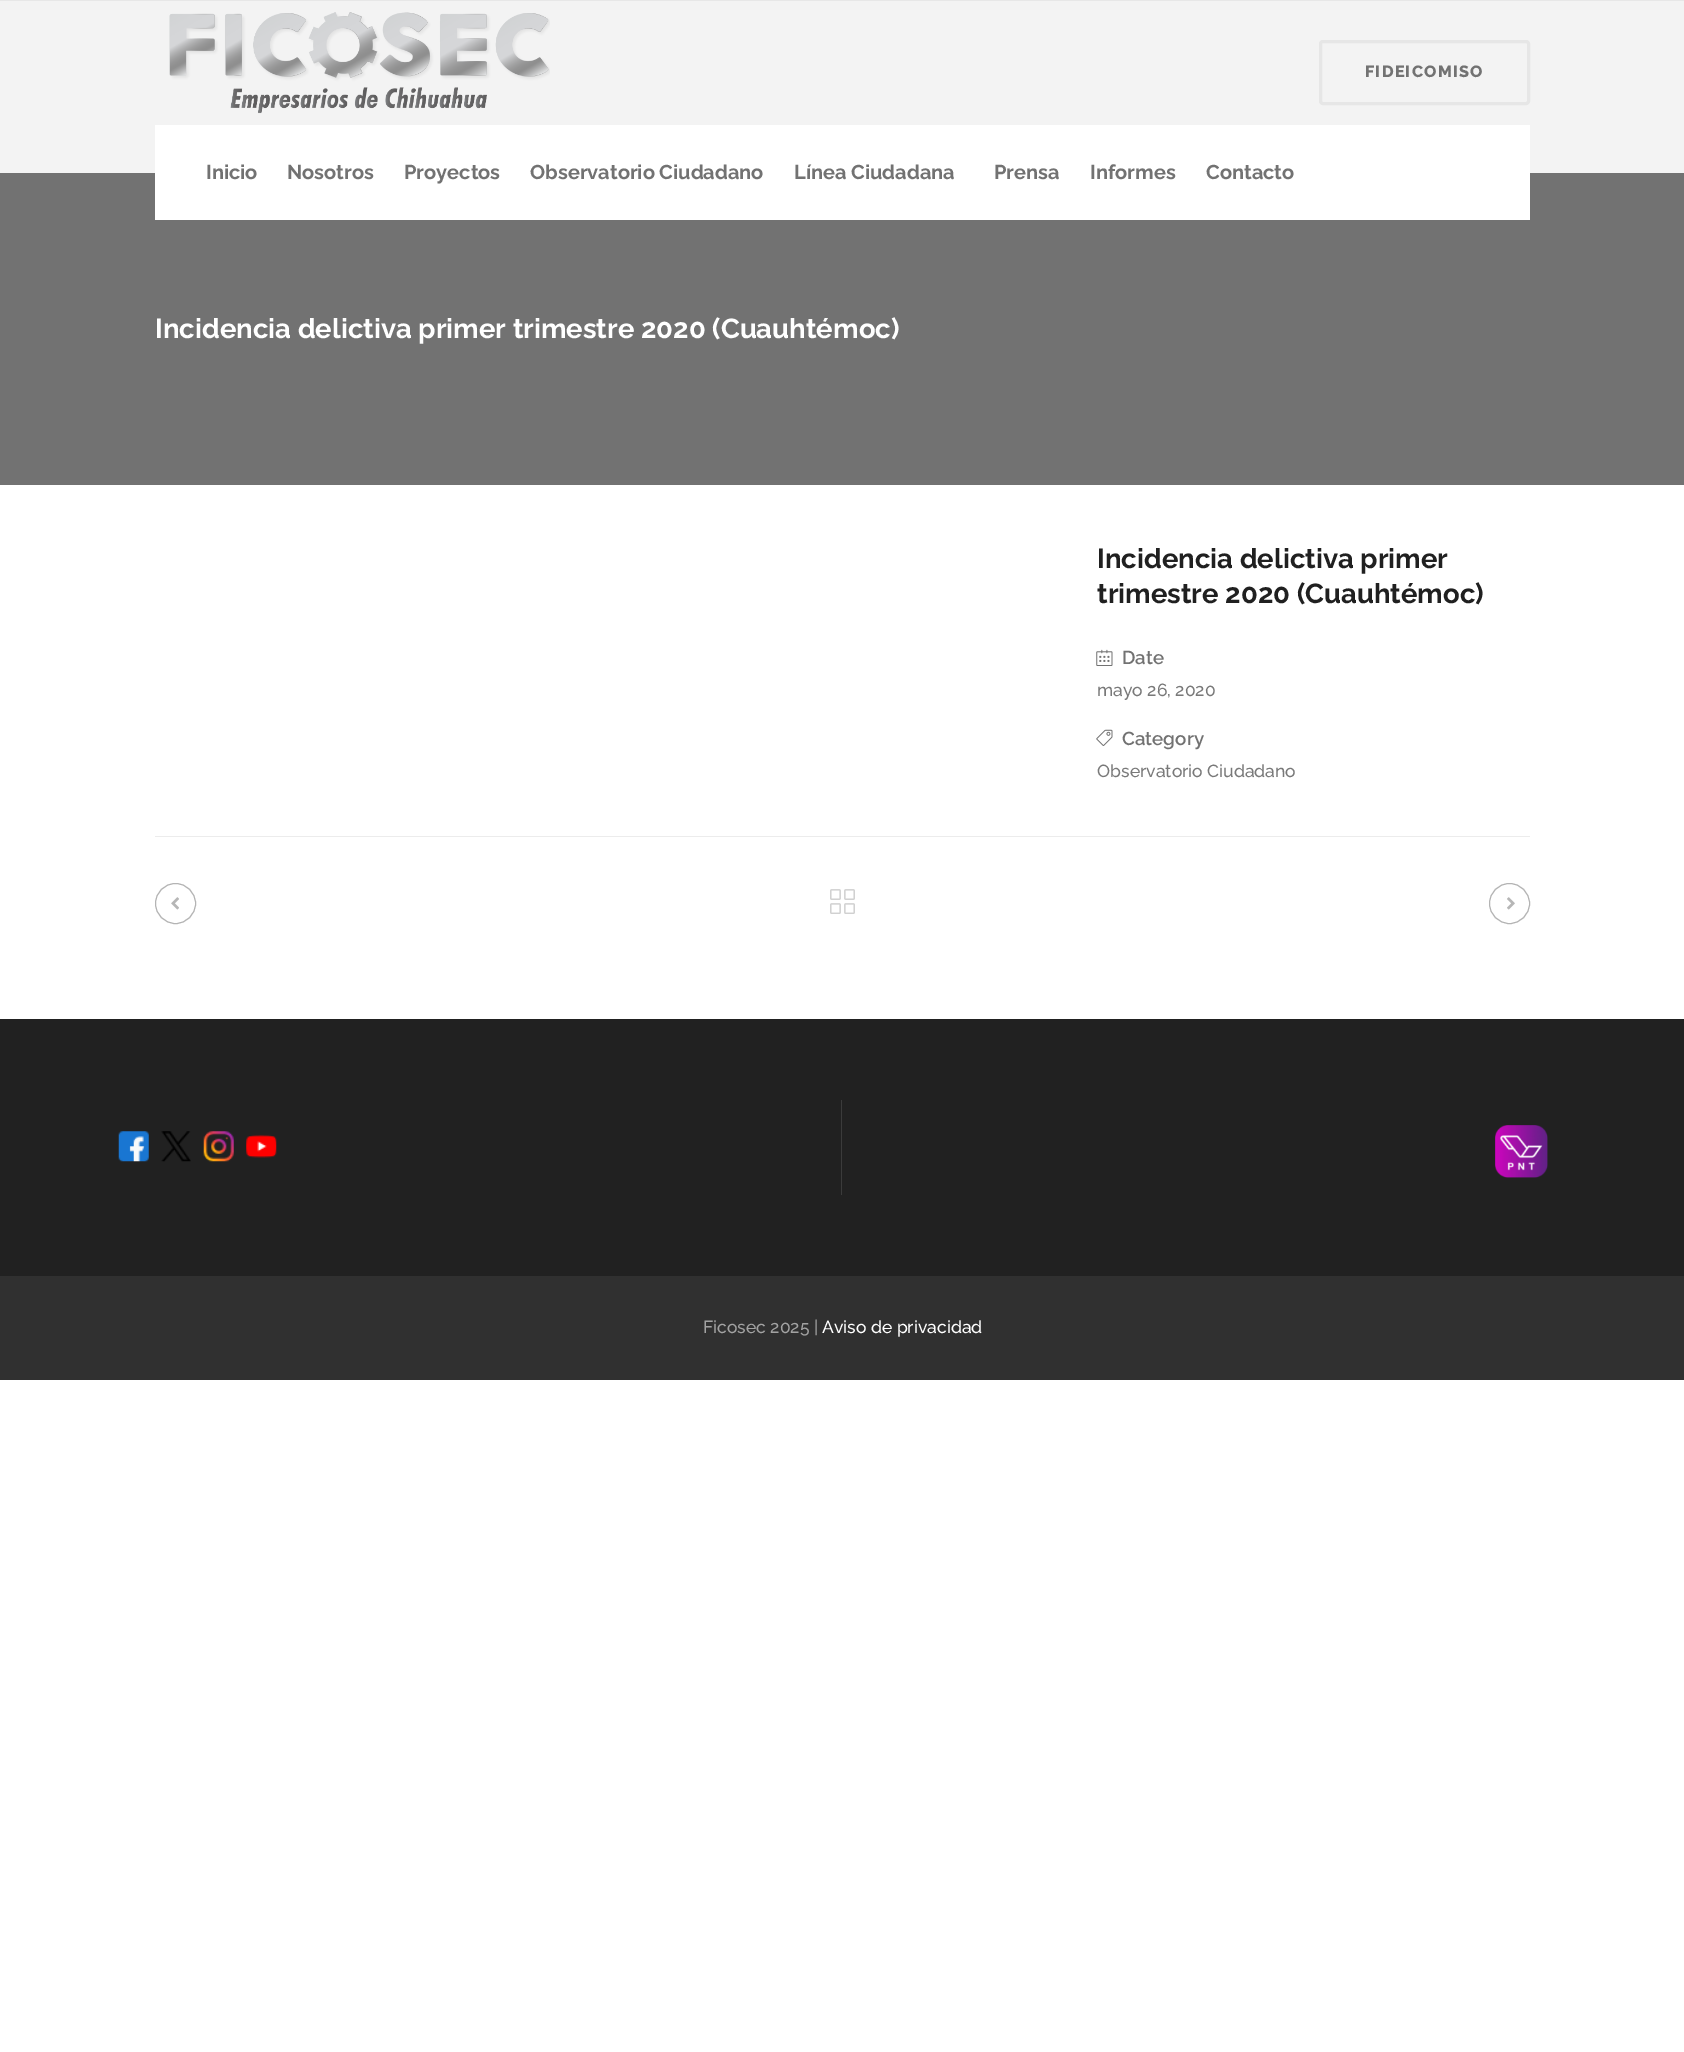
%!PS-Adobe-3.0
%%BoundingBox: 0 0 1684 2052
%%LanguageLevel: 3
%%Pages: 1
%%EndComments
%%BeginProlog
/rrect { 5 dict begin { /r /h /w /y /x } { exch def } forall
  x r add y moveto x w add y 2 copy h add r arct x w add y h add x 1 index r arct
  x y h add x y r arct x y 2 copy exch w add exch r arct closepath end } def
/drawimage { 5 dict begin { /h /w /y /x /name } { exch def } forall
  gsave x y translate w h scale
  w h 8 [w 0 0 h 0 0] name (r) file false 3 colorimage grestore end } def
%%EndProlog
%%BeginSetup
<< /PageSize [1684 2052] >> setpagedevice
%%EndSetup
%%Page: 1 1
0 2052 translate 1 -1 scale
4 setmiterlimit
1 setgray
0 0 1684 2052 rectfill
0.906 setgray
0 0 1684 1 rectfill
0.953 setgray
0 1 1684 172 rectfill
(images/1.raw) 169 12 381 102 drawimage
0.902 setgray
3 setlinewidth
1320.5 41.5 208 62 2.5 rrect stroke
0.447 setgray
0 173 1684 312 rectfill
1 setgray
155 125 1375 95 rectfill
(images/2.raw) 1096 649 17 17 drawimage
(images/3.raw) 1096 729 17 17 drawimage
0.925 setgray
155 836 1375 1 rectfill
0.706 setgray
1 setlinewidth
newpath 175.5 903.5 20 0 360 arc closepath stroke
(images/4.raw) 171 897 8 13 drawimage
(images/5.raw) 830 889 25 25 drawimage
newpath 1509.5 903.5 20 0 360 arc closepath stroke
(images/6.raw) 1507 897 8 13 drawimage
0.129 setgray
0 1019 1684 257 rectfill
0.231 setgray
841 1100 1 95 rectfill
(images/7.raw) 118 1131 31 31 drawimage
(images/8.raw) 161 1131 30 31 drawimage
(images/9.raw) 203 1131 31 31 drawimage
(images/10.raw) 246 1134 31 24 drawimage
(images/11.raw) 1495 1125 53 53 drawimage
0.188 setgray
0 1276 1684 104 rectfill
/Raleway-ExtraBold [16.25 0 0 -16.25 0 0] selectfont
0.447 setgray
1365 77 moveto 1.25 0 (FIDEICOMISO) ashow
/Raleway-Bold [20 0 0 -20 0 0] selectfont
206 179 moveto (Inicio) show
287 179 moveto (Nosotros) show
404 179 moveto (Proyectos) show
530 179 moveto (Observatorio Ciudadano) show
794 179 moveto (Línea Ciudadana) show
994 179 moveto (Prensa) show
1090 179 moveto (Informes) show
1206 179 moveto (Contacto) show
/Raleway-Bold [27.5 0 0 -27.5 0 0] selectfont
1 setgray
155 338 moveto (Incidencia delictiva primer trimestre 2020 \(Cuauhtémoc\)) show
0.125 setgray
1097 568 moveto (Incidencia delictiva primer) show
1097 603 moveto (trimestre 2020 \(Cuauhtémoc\)) show
/Raleway-SemiBold [18.75 0 0 -18.75 0 0] selectfont
0.447 setgray
1122 664 moveto (Date) show
/Raleway-Medium [17.5 0 0 -17.5 0 0] selectfont
0.475 setgray
1097 696 moveto (mayo 26, 2020) show
/Raleway-SemiBold [18.75 0 0 -18.75 0 0] selectfont
0.447 setgray
1122 745 moveto (Category) show
/Raleway-Medium [17.5 0 0 -17.5 0 0] selectfont
0.475 setgray
1097 777 moveto (Observatorio Ciudadano) show
0.635 setgray
703 1333 moveto (Ficosec 2025 |) show
1 setgray
822 1333 moveto (Aviso de privacidad) show
showpage
%%EOF
